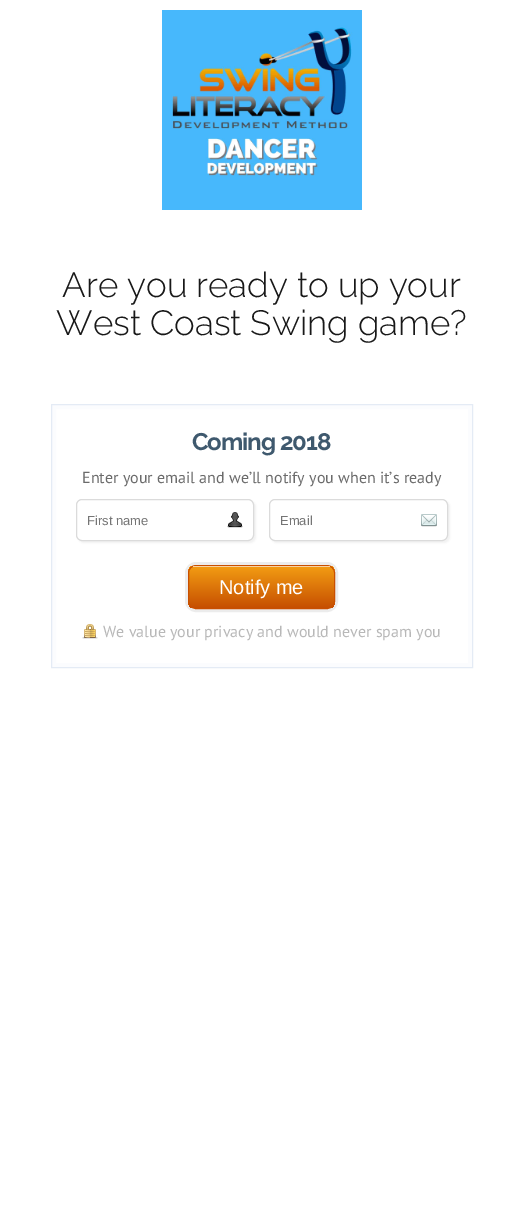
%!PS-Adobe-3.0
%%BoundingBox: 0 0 523 1228
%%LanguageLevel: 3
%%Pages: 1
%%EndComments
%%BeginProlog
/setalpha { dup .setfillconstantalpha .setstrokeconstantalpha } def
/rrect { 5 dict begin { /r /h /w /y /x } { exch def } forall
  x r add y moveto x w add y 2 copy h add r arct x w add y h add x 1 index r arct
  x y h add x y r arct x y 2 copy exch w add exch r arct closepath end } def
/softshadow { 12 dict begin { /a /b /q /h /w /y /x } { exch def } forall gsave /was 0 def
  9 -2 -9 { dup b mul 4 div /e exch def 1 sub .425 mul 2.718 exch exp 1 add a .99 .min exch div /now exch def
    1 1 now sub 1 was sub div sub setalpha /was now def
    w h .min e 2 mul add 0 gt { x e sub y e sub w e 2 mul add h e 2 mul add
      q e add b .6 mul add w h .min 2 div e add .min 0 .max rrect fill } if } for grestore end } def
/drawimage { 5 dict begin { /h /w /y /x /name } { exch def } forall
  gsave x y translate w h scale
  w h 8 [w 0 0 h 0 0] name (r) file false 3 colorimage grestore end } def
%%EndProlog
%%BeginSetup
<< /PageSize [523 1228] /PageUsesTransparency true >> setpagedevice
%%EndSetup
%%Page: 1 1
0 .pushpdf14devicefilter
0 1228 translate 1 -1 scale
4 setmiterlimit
1 setgray
0 0 523 1228 rectfill
(images/1.raw) 162 10 200 200 drawimage
0.984 0.988 0.996 setrgbcolor
4 setlinewidth
54 407 416 258 rectstroke
0 setgray
78 501 178 42 6 1 0.05 softshadow
1 setgray
76 499 178 42 6 rrect fill
(images/2.raw) 227 512 16 16 drawimage
0.859 setgray
1 setlinewidth
76.5 499.5 177 41 5.5 rrect stroke
0 setgray
271 501 179 42 6 1 0.05 softshadow
1 setgray
269 499 179 42 6 rrect fill
(images/3.raw) 421 514 16 13 drawimage
0.859 setgray
269.5 499.5 178 41 5.5 rrect stroke
0.894 0.922 0.961 setrgbcolor
51.5 404.5 421 263 rectstroke
0.925 setgray
3 setlinewidth
186.5 563.5 150 47 9.5 rrect stroke
gsave
188 565 147 44 8 rrect clip newpath
gsave newpath 188 566 moveto 335 566 lineto 335 608 lineto 188 608 lineto closepath clip newpath
<< /ShadingType 2 /ColorSpace /DeviceRGB /Coords [262 566 262 608] /Extend [true true] /Function << /FunctionType 2 /Domain [0 1] /C0 [0.953 0.616 0.075] /C1 [0.776 0.31 0.004] /N 1 >> >> shfill grestore
grestore
0.788 0.31 0 setrgbcolor
1 setlinewidth
188.5 565.5 146 43 7.5 rrect stroke
0.976 0.816 0.627 setrgbcolor
193 566 137 1 rectfill
(images/4.raw) 82 624 16 15 drawimage
/Raleway-Light [35 0 0 -35 0 0] selectfont
0.094 setgray
62 297 moveto (Are you ready to up your) show
56 335 moveto (West Coast Swing game?) show
/Raleway-Bold [24 0 0 -24 0 0] selectfont
0.247 0.349 0.431 setrgbcolor
192 450 moveto -1 0 (Coming 2018) ashow
/PTSans-Regular [16 0 0 -16 0 0] selectfont
0.42 setgray
82 483 moveto (Enter your email and we’ll notify you when it’s ready) show
/LiberationSans-Regular [13 0 0 -13 0 0] selectfont
0.459 setgray
87 525 moveto (First name) show
280 525 moveto (Email) show
/LiberationSans-Regular [20 0 0 -20 0 0] selectfont
1 setgray
219 594 moveto (Notify me) show
/PTSans-Regular [16 0 0 -16 0 0] selectfont
0.722 setgray
103 637 moveto (We value your privacy and would never spam you) show
.poppdf14devicefilter showpage
%%EOF
